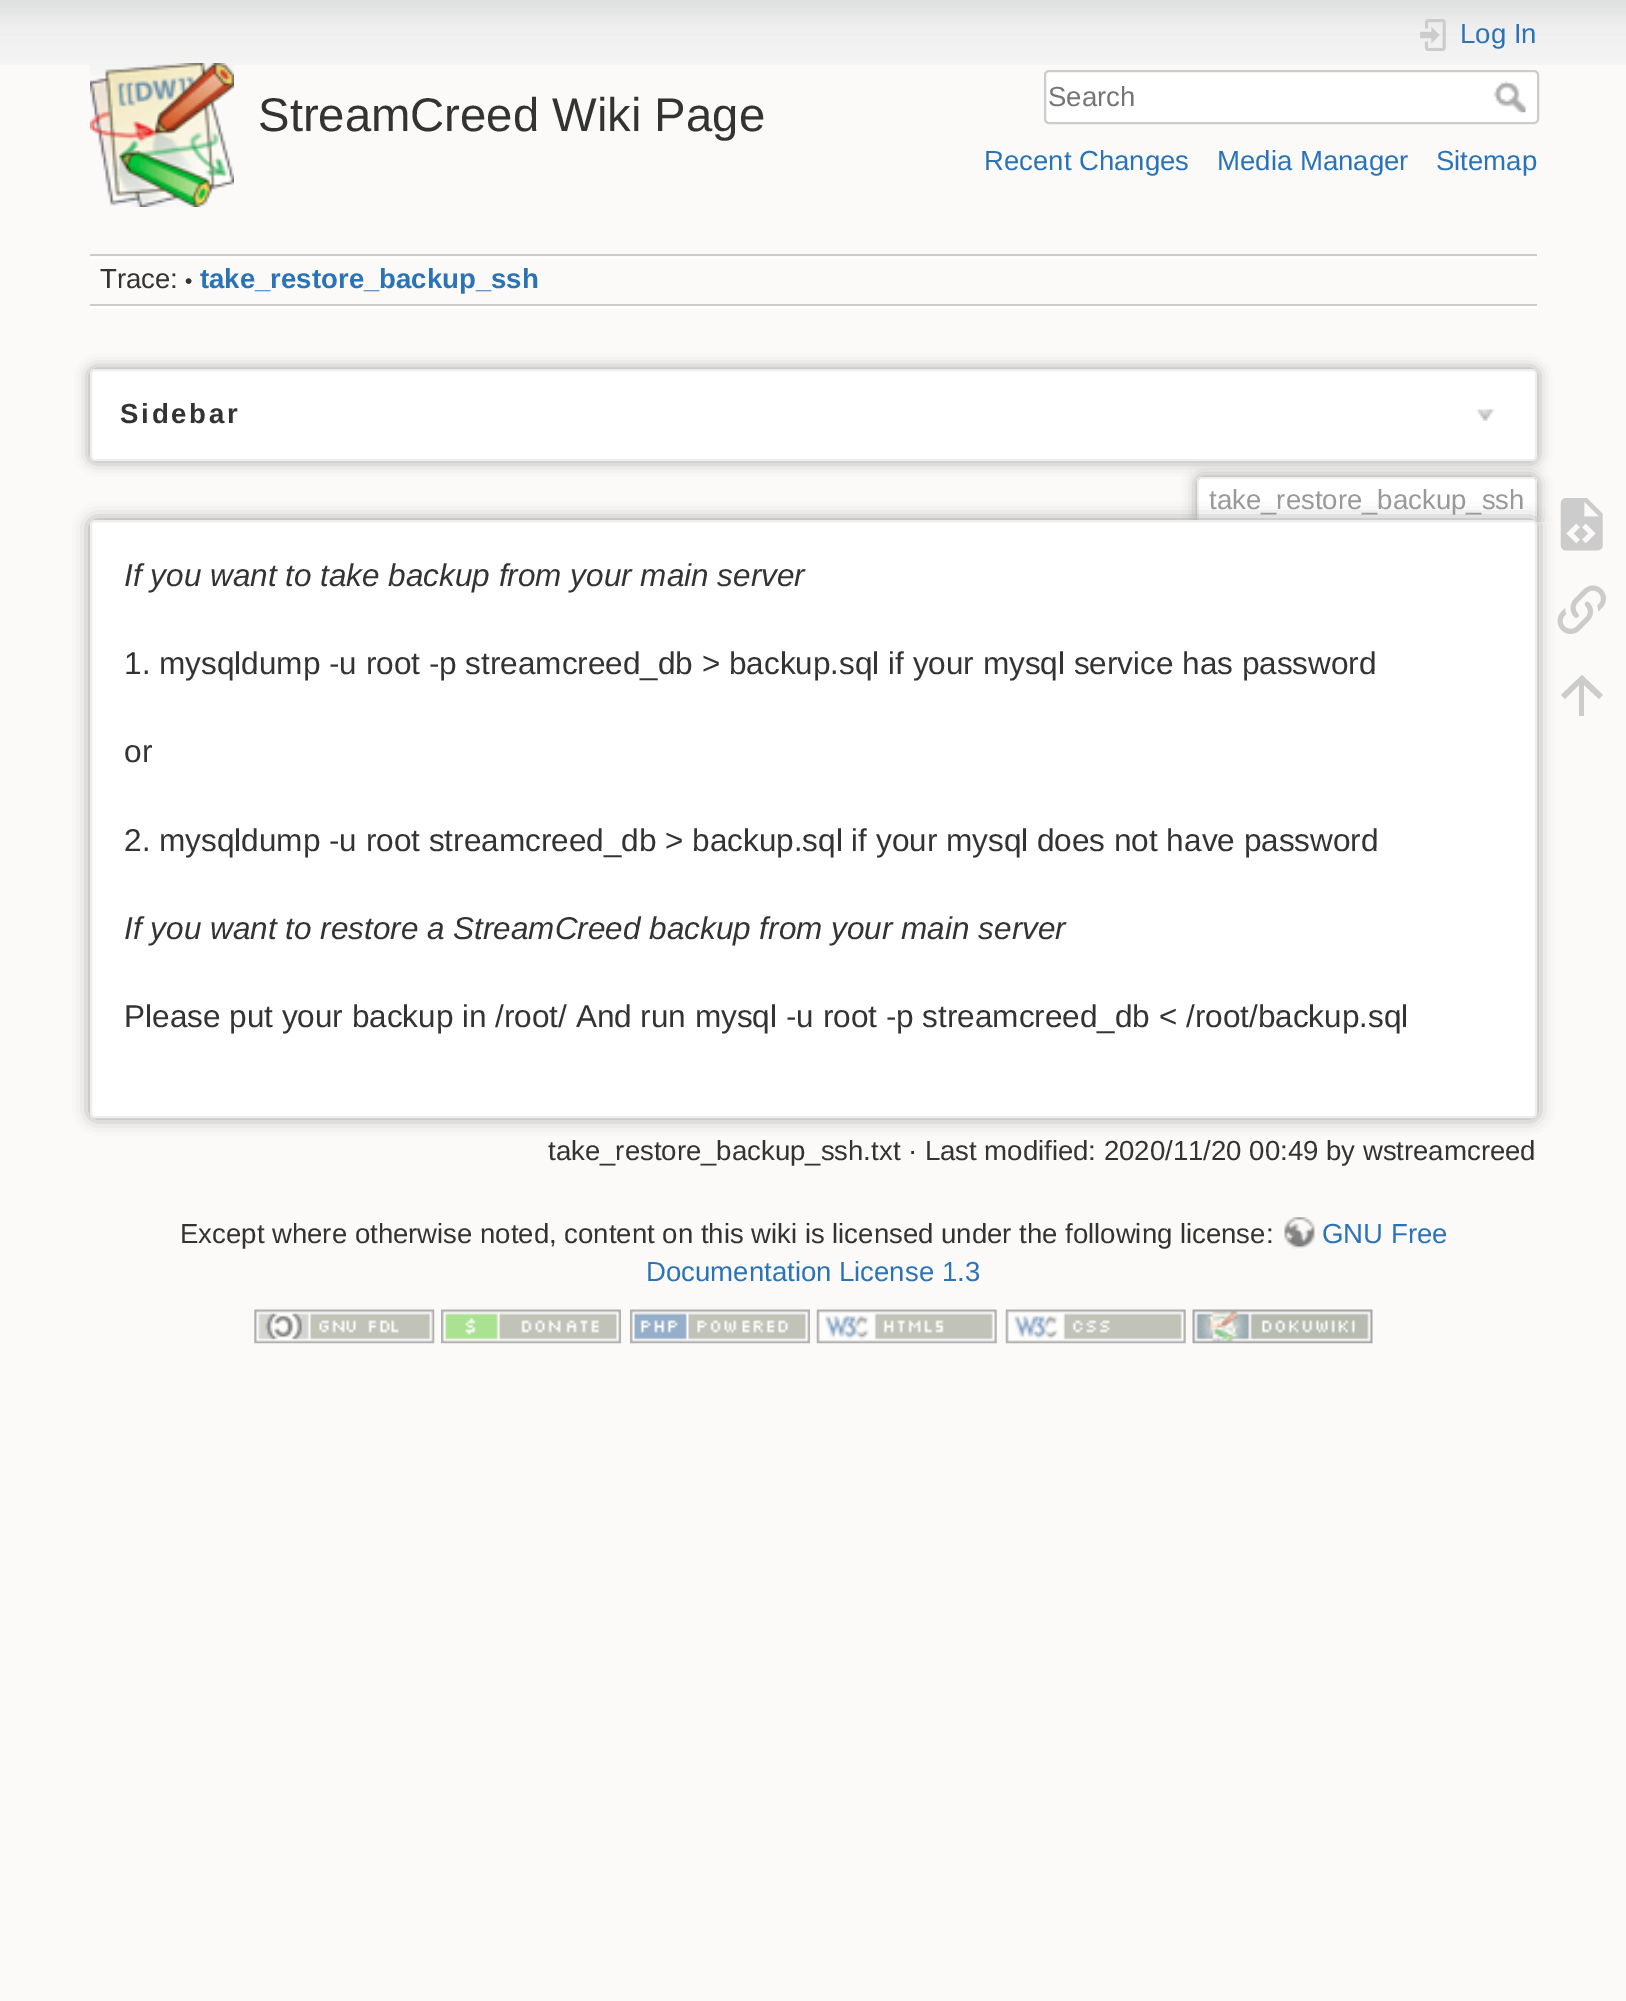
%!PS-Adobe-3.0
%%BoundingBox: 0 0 1626 2001
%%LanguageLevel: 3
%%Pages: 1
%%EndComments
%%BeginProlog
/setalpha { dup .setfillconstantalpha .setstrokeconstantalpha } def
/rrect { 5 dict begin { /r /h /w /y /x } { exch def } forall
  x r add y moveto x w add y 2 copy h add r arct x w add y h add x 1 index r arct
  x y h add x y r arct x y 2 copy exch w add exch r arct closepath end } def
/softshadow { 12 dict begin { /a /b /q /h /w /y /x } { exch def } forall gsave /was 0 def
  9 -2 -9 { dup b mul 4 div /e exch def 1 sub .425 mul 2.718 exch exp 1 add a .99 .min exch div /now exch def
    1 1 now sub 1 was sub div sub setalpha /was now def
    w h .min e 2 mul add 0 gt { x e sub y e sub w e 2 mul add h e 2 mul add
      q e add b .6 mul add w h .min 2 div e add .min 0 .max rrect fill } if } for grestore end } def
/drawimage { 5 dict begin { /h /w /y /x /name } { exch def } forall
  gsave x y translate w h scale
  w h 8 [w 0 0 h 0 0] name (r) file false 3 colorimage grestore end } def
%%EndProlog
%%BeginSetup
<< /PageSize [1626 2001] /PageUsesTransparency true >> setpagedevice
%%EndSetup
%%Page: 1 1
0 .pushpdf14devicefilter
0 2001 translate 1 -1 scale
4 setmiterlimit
0.984 0.98 0.976 setrgbcolor
0 0 1626 2001 rectfill
(images/1.raw) 0 0 1626 65 drawimage
(images/2.raw) 90 63 144 144 drawimage
(images/3.raw) 1420 19 26 33 drawimage
1 setgray
1045 71 493 52 4 rrect gsave fill grestore
0.8 setgray
2 setlinewidth
stroke
(images/4.raw) 1494 81 32 32 drawimage
90 254 1447 2 rectfill
1 setgray
90 306 1447 2 rectfill
90 257 1447 2 rectfill
0.8 setgray
90 304 1447 2 rectfill
gsave
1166 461 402 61 rectclip
0.6 setgray
1197 477 340 45 5 7 1 softshadow
grestore
1 setgray
newpath 1201 479 moveto 1533 479 lineto 1534 479 1535 480 1535 481 curveto 1535 522 lineto 1199 522 lineto 1199 481 lineto 1199 480 1200 479 1201 479 curveto closepath fill
0.933 setgray
1199 477 336 2 rectfill
1535 479 2 43 rectfill
1197 479 2 43 rectfill
0.6 setgray
90 369 1447 92 5 7 1 softshadow
1 setgray
91 370 1445 90 4 rrect gsave fill grestore
0.933 setgray
stroke
(images/5.raw) 1476 409 18 12 drawimage
0.6 setgray
90 520 1447 598 5 8 1 softshadow
1 setgray
91 521 1445 596 4 rrect gsave fill grestore
0.933 setgray
stroke
(images/6.raw) 1560 498 43 53 drawimage
(images/7.raw) 1557 585 49 49 drawimage
0.8 setgray
newpath 1584 716 moveto 1579 716 lineto 1579 685 lineto 1565 699 lineto 1561 695 lineto 1582 675 lineto 1603 695 lineto 1599 699 lineto 1584 685 lineto closepath fill
(images/8.raw) 1284 1217 32 32 drawimage
(images/9.raw) 254 1309 181 35 drawimage
(images/10.raw) 441 1309 180 35 drawimage
(images/11.raw) 630 1309 180 35 drawimage
(images/12.raw) 816 1309 181 35 drawimage
(images/13.raw) 1005 1309 181 35 drawimage
(images/14.raw) 1192 1309 181 35 drawimage
/LiberationSans-Regular [47.25 0 0 -47.25 0 0] selectfont
0.2 setgray
258 131 moveto (StreamCreed Wiki Page) show
/LiberationSans-Regular [27.55 0 0 -27.55 0 0] selectfont
0.169 0.451 0.718 setrgbcolor
1460 43 moveto (Log In) show
0.459 setgray
1048 106 moveto (Search) show
0.169 0.451 0.718 setrgbcolor
984 170 moveto (Recent Changes) show
1217 170 moveto (Media Manager) show
1436 170 moveto (Sitemap) show
0.2 setgray
100 288 moveto (Trace:) show
/LiberationSans-Regular [21 0 0 -21 0 0] selectfont
185 288 moveto (•) show
/LiberationSans-Bold [27.55 0 0 -27.55 0 0] selectfont
0.169 0.451 0.718 setrgbcolor
200 288 moveto (take_restore_backup_ssh) show
0.2 setgray
120 423 moveto 2.75 0 (Sidebar) ashow
/LiberationSans-Regular [27.55 0 0 -27.55 0 0] selectfont
0.6 setgray
1209 509 moveto (take_restore_backup_ssh) show
/LiberationSans-Italic [31.5 0 0 -31.5 0 0] selectfont
0.2 setgray
124 586 moveto (If you want to take backup from your main server) show
/LiberationSans-Regular [31.5 0 0 -31.5 0 0] selectfont
124 674 moveto (1. mysqldump -u root -p streamcreed_db > backup.sql if your mysql service has password) show
124 762 moveto (or) show
124 851 moveto (2. mysqldump -u root streamcreed_db > backup.sql if your mysql does not have password) show
/LiberationSans-Italic [31.5 0 0 -31.5 0 0] selectfont
124 939 moveto (If you want to restore a StreamCreed backup from your main server) show
/LiberationSans-Regular [31.5 0 0 -31.5 0 0] selectfont
124 1027 moveto (Please put your backup in /root/ And run mysql -u root -p streamcreed_db < /root/backup.sql) show
/LiberationSans-Regular [27.55 0 0 -27.55 0 0] selectfont
548 1160 moveto (take_restore_backup_ssh.txt · Last modified: 2020/11/20 00:49 by wstreamcreed) show
180 1243 moveto (Except where otherwise noted, content on this wiki is licensed under the following license:) show
0.169 0.451 0.718 setrgbcolor
1322 1243 moveto (GNU Free) show
646 1281 moveto (Documentation License 1.3) show
.poppdf14devicefilter showpage
%%EOF
